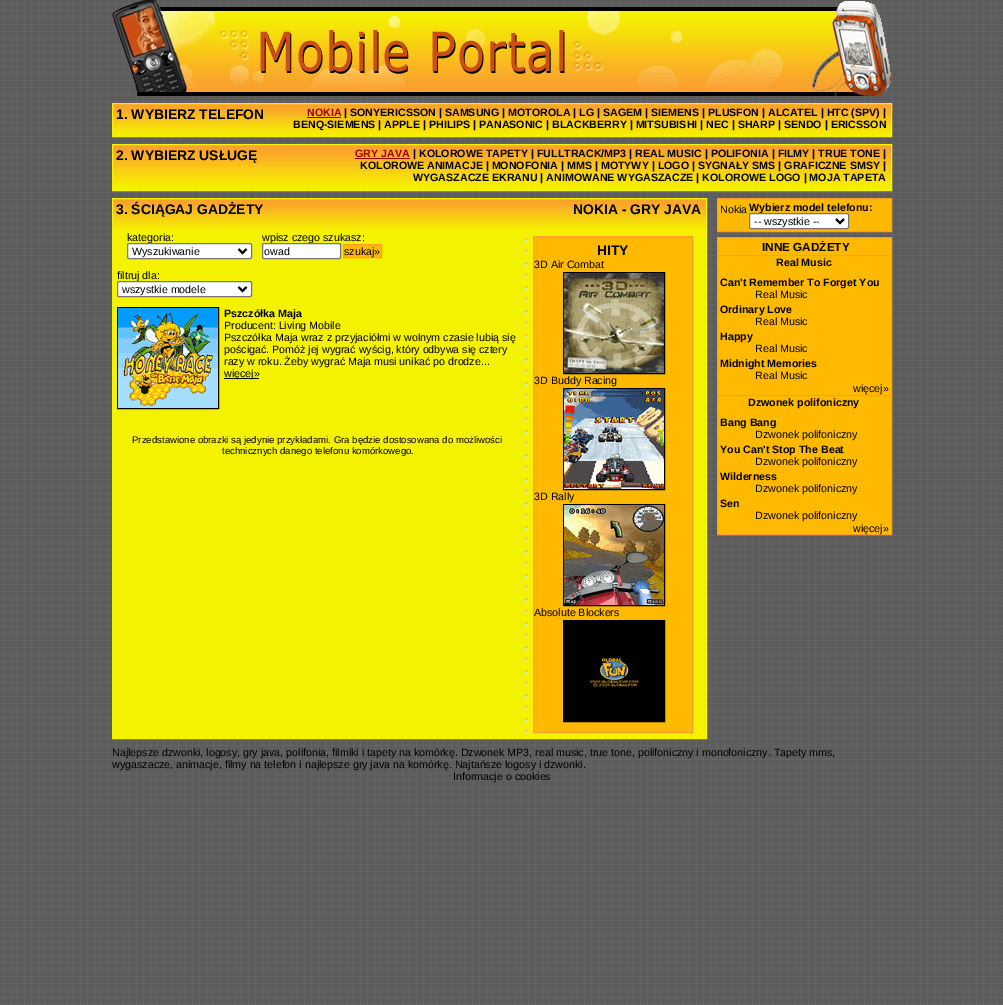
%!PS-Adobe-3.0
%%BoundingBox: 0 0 1003 1005
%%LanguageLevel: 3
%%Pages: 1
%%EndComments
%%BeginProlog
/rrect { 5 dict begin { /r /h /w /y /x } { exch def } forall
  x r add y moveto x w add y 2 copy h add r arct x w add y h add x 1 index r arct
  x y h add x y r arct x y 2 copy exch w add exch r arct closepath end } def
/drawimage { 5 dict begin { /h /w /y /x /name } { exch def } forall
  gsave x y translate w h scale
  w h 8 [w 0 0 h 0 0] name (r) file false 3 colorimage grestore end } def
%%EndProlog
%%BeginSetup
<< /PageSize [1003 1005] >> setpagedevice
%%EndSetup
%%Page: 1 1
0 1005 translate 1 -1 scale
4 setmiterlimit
1 setgray
0 0 1003 1005 rectfill
(images/1.raw) 0 0 1003 1005 drawimage
(images/2.raw) 112 0 780 96 drawimage
0.961 0.949 0 setrgbcolor
113 135 778 1 rectfill
(images/3.raw) 113 104 778 31 drawimage
112.5 103.5 779 33 rectstroke
0.62 0 0 setrgbcolor
307 117 34 1 rectfill
0.961 0.949 0 setrgbcolor
113 187 778 3 rectfill
(images/4.raw) 113 145 778 42 drawimage
112.5 144.5 779 46 rectstroke
0.62 0 0 setrgbcolor
355 158 55 1 rectfill
0.961 0.949 0 setrgbcolor
113 230 593 508 rectfill
(images/5.raw) 113 199 593 31 drawimage
112.5 198.5 594 540 rectstroke
1 0.729 0 setrgbcolor
newpath 343.5 244.5 moveto 381.5 244.5 lineto 381.5 257.5 lineto 343.5 257.5 lineto closepath gsave fill grestore
0.988 0.62 0.184 setrgbcolor
stroke
0 setgray
117.5 307.5 101 101 rectstroke
(images/6.raw) 118 308 100 100 drawimage
224 378 35 1 rectfill
(images/7.raw) 526 238 1 496 drawimage
1 0.729 0 setrgbcolor
newpath 533.5 236.5 moveto 692.5 236.5 lineto 692.5 732.5 lineto 533.5 732.5 lineto closepath gsave fill grestore
0.988 0.62 0.184 setrgbcolor
stroke
0 setgray
563.5 272.5 101 101 rectstroke
(images/8.raw) 564 273 100 100 drawimage
563.5 388.5 101 101 rectstroke
(images/9.raw) 564 389 100 100 drawimage
563.5 504.5 101 101 rectstroke
(images/10.raw) 564 505 100 100 drawimage
563.5 620.5 101 101 rectstroke
(images/11.raw) 564 621 100 100 drawimage
1 0.729 0 setrgbcolor
newpath 717.5 198.5 moveto 891.5 198.5 lineto 891.5 231.5 lineto 717.5 231.5 lineto closepath gsave fill grestore
0.988 0.62 0.184 setrgbcolor
stroke
1 0.729 0 setrgbcolor
newpath 717.5 237.5 moveto 891.5 237.5 lineto 891.5 534.5 lineto 717.5 534.5 lineto closepath gsave fill grestore
0.988 0.62 0.184 setrgbcolor
stroke
718 255 173 1 rectfill
718 395 173 1 rectfill
/LiberationSans-Bold [13.9 0 0 -13.9 0 0] selectfont
0 setgray
116 119 moveto (1. WYBIERZ TELEFON) show
/LiberationSans-Bold [10.67 0 0 -10.67 0 0] selectfont
0.62 0 0 setrgbcolor
307 116 moveto (NOKIA) show
0 setgray
344 116 moveto (| SONYERICSSON | SAMSUNG | MOTOROLA | LG | SAGEM | SIEMENS | PLUSFON | ALCATEL | HTC \(SPV\) |) show
293 128 moveto (BENQ-SIEMENS | APPLE | PHILIPS | PANASONIC | BLACKBERRY | MITSUBISHI | NEC | SHARP | SENDO | ERICSSON) show
/LiberationSans-Bold [13.9 0 0 -13.9 0 0] selectfont
116 160 moveto (2. WYBIERZ USŁUGĘ) show
/LiberationSans-Bold [10.67 0 0 -10.67 0 0] selectfont
0.62 0 0 setrgbcolor
355 157 moveto (GRY JAVA) show
0 setgray
413 157 moveto (| KOLOROWE TAPETY | FULLTRACK/MP3 | REAL MUSIC | POLIFONIA | FILMY | TRUE TONE |) show
360 169 moveto (KOLOROWE ANIMACJE | MONOFONIA | MMS | MOTYWY | LOGO | SYGNAŁY SMS | GRAFICZNE SMSY |) show
413 181 moveto (WYGASZACZE EKRANU | ANIMOWANE WYGASZACZE | KOLOROWE LOGO | MOJA TAPETA) show
/LiberationSans-Bold [13.9 0 0 -13.9 0 0] selectfont
116 214 moveto (3. ŚCIĄGAJ GADŻETY) show
573 214 moveto (NOKIA - GRY JAVA) show
/LiberationSans-Regular [10.67 0 0 -10.67 0 0] selectfont
127 241 moveto (kategoria:) show
1 setgray
127.5 243.5 124 15 1.5 rrect gsave fill grestore
0.463 setgray
stroke
0 setgray
2 setlinewidth
newpath 238.5 249 moveto 242.5 253 lineto 246.5 249 lineto stroke
132 255 moveto (Wyszukiwanie) show
262 241 moveto (wpisz czego szukasz:) show
1 setgray
262.5 243.5 78 15 1.5 rrect gsave fill grestore
0.463 setgray
1 setlinewidth
stroke
0 setgray
264 255 moveto (owad) show
344 255 moveto (szukaj») show
117 279 moveto (filtruj dla:) show
1 setgray
117.5 281.5 134 15 1.5 rrect gsave fill grestore
0.463 setgray
stroke
0 setgray
2 setlinewidth
newpath 238.5 287 moveto 242.5 291 lineto 246.5 287 lineto stroke
122 293 moveto (wszystkie modele) show
/LiberationSans-Bold [10.67 0 0 -10.67 0 0] selectfont
224 317 moveto (Pszczółka Maja) show
/LiberationSans-Regular [10.67 0 0 -10.67 0 0] selectfont
224 329 moveto (Producent: Living Mobile) show
224 341 moveto (Pszczółka Maja wraz z przyjaciółmi w wolnym czasie lubią się) show
224 353 moveto (pościgać. Pomóż jej wygrać wyścig, który odbywa się cztery) show
224 365 moveto (razy w roku. Żeby wygrać Maja musi unikać po drodze...) show
224 377 moveto (więcej») show
/LiberationSans-Regular [9.6 0 0 -9.6 0 0] selectfont
132 443 moveto (Przedstawione obrazki są jedynie przykładami. Gra będzie dostosowana do możliwości) show
222 454 moveto (technicznych danego telefonu komórkowego.) show
/LiberationSans-Bold [13.9 0 0 -13.9 0 0] selectfont
597 255 moveto (HITY) show
/LiberationSans-Regular [10.67 0 0 -10.67 0 0] selectfont
534 268 moveto (3D Air Combat) show
534 384 moveto (3D Buddy Racing) show
534 500 moveto (3D Rally) show
534 616 moveto (Absolute Blockers) show
720 213 moveto (Nokia) show
/LiberationSans-Bold [10.67 0 0 -10.67 0 0] selectfont
749 211 moveto (Wybierz model telefonu:) show
1 setgray
749.5 213.5 99 15 1.5 rrect gsave fill grestore
0.463 setgray
1 setlinewidth
stroke
0 setgray
2 setlinewidth
newpath 836 219 moveto 840 223 lineto 844 219 lineto stroke
/LiberationSans-Regular [10.67 0 0 -10.67 0 0] selectfont
754 225 moveto (-- wszystkie --) show
/LiberationSans-Bold [11.75 0 0 -11.75 0 0] selectfont
762 251 moveto (INNE GADŻETY) show
/LiberationSans-Bold [10.67 0 0 -10.67 0 0] selectfont
776 266 moveto (Real Music) show
720 286 moveto (Can't Remember To Forget You) show
/LiberationSans-Regular [10.67 0 0 -10.67 0 0] selectfont
755 298 moveto (Real Music) show
/LiberationSans-Bold [10.67 0 0 -10.67 0 0] selectfont
720 313 moveto (Ordinary Love) show
/LiberationSans-Regular [10.67 0 0 -10.67 0 0] selectfont
755 325 moveto (Real Music) show
/LiberationSans-Bold [10.67 0 0 -10.67 0 0] selectfont
720 340 moveto (Happy) show
/LiberationSans-Regular [10.67 0 0 -10.67 0 0] selectfont
755 352 moveto (Real Music) show
/LiberationSans-Bold [10.67 0 0 -10.67 0 0] selectfont
720 367 moveto (Midnight Memories) show
/LiberationSans-Regular [10.67 0 0 -10.67 0 0] selectfont
755 379 moveto (Real Music) show
853 392 moveto (więcej») show
/LiberationSans-Bold [10.67 0 0 -10.67 0 0] selectfont
748 406 moveto (Dzwonek polifoniczny) show
720 426 moveto (Bang Bang) show
/LiberationSans-Regular [10.67 0 0 -10.67 0 0] selectfont
755 438 moveto (Dzwonek polifoniczny) show
/LiberationSans-Bold [10.67 0 0 -10.67 0 0] selectfont
720 453 moveto (You Can't Stop The Beat) show
/LiberationSans-Regular [10.67 0 0 -10.67 0 0] selectfont
755 465 moveto (Dzwonek polifoniczny) show
/LiberationSans-Bold [10.67 0 0 -10.67 0 0] selectfont
720 480 moveto (Wilderness) show
/LiberationSans-Regular [10.67 0 0 -10.67 0 0] selectfont
755 492 moveto (Dzwonek polifoniczny) show
/LiberationSans-Bold [10.67 0 0 -10.67 0 0] selectfont
720 507 moveto (Sen) show
/LiberationSans-Regular [10.67 0 0 -10.67 0 0] selectfont
755 519 moveto (Dzwonek polifoniczny) show
853 532 moveto (więcej») show
112 756 moveto (Najlepsze dzwonki, logosy, gry java, polifonia, filmiki i tapety na komórkę. Dzwonek MP3, real music, true tone, polifoniczny i monofoniczny. Tapety mms,) show
112 768 moveto (wygaszacze, animacje, filmy na telefon i najlepsze gry java na komórkę. Najtańsze logosy i dzwonki.) show
453 780 moveto (Informacje o cookies) show
showpage
%%EOF
